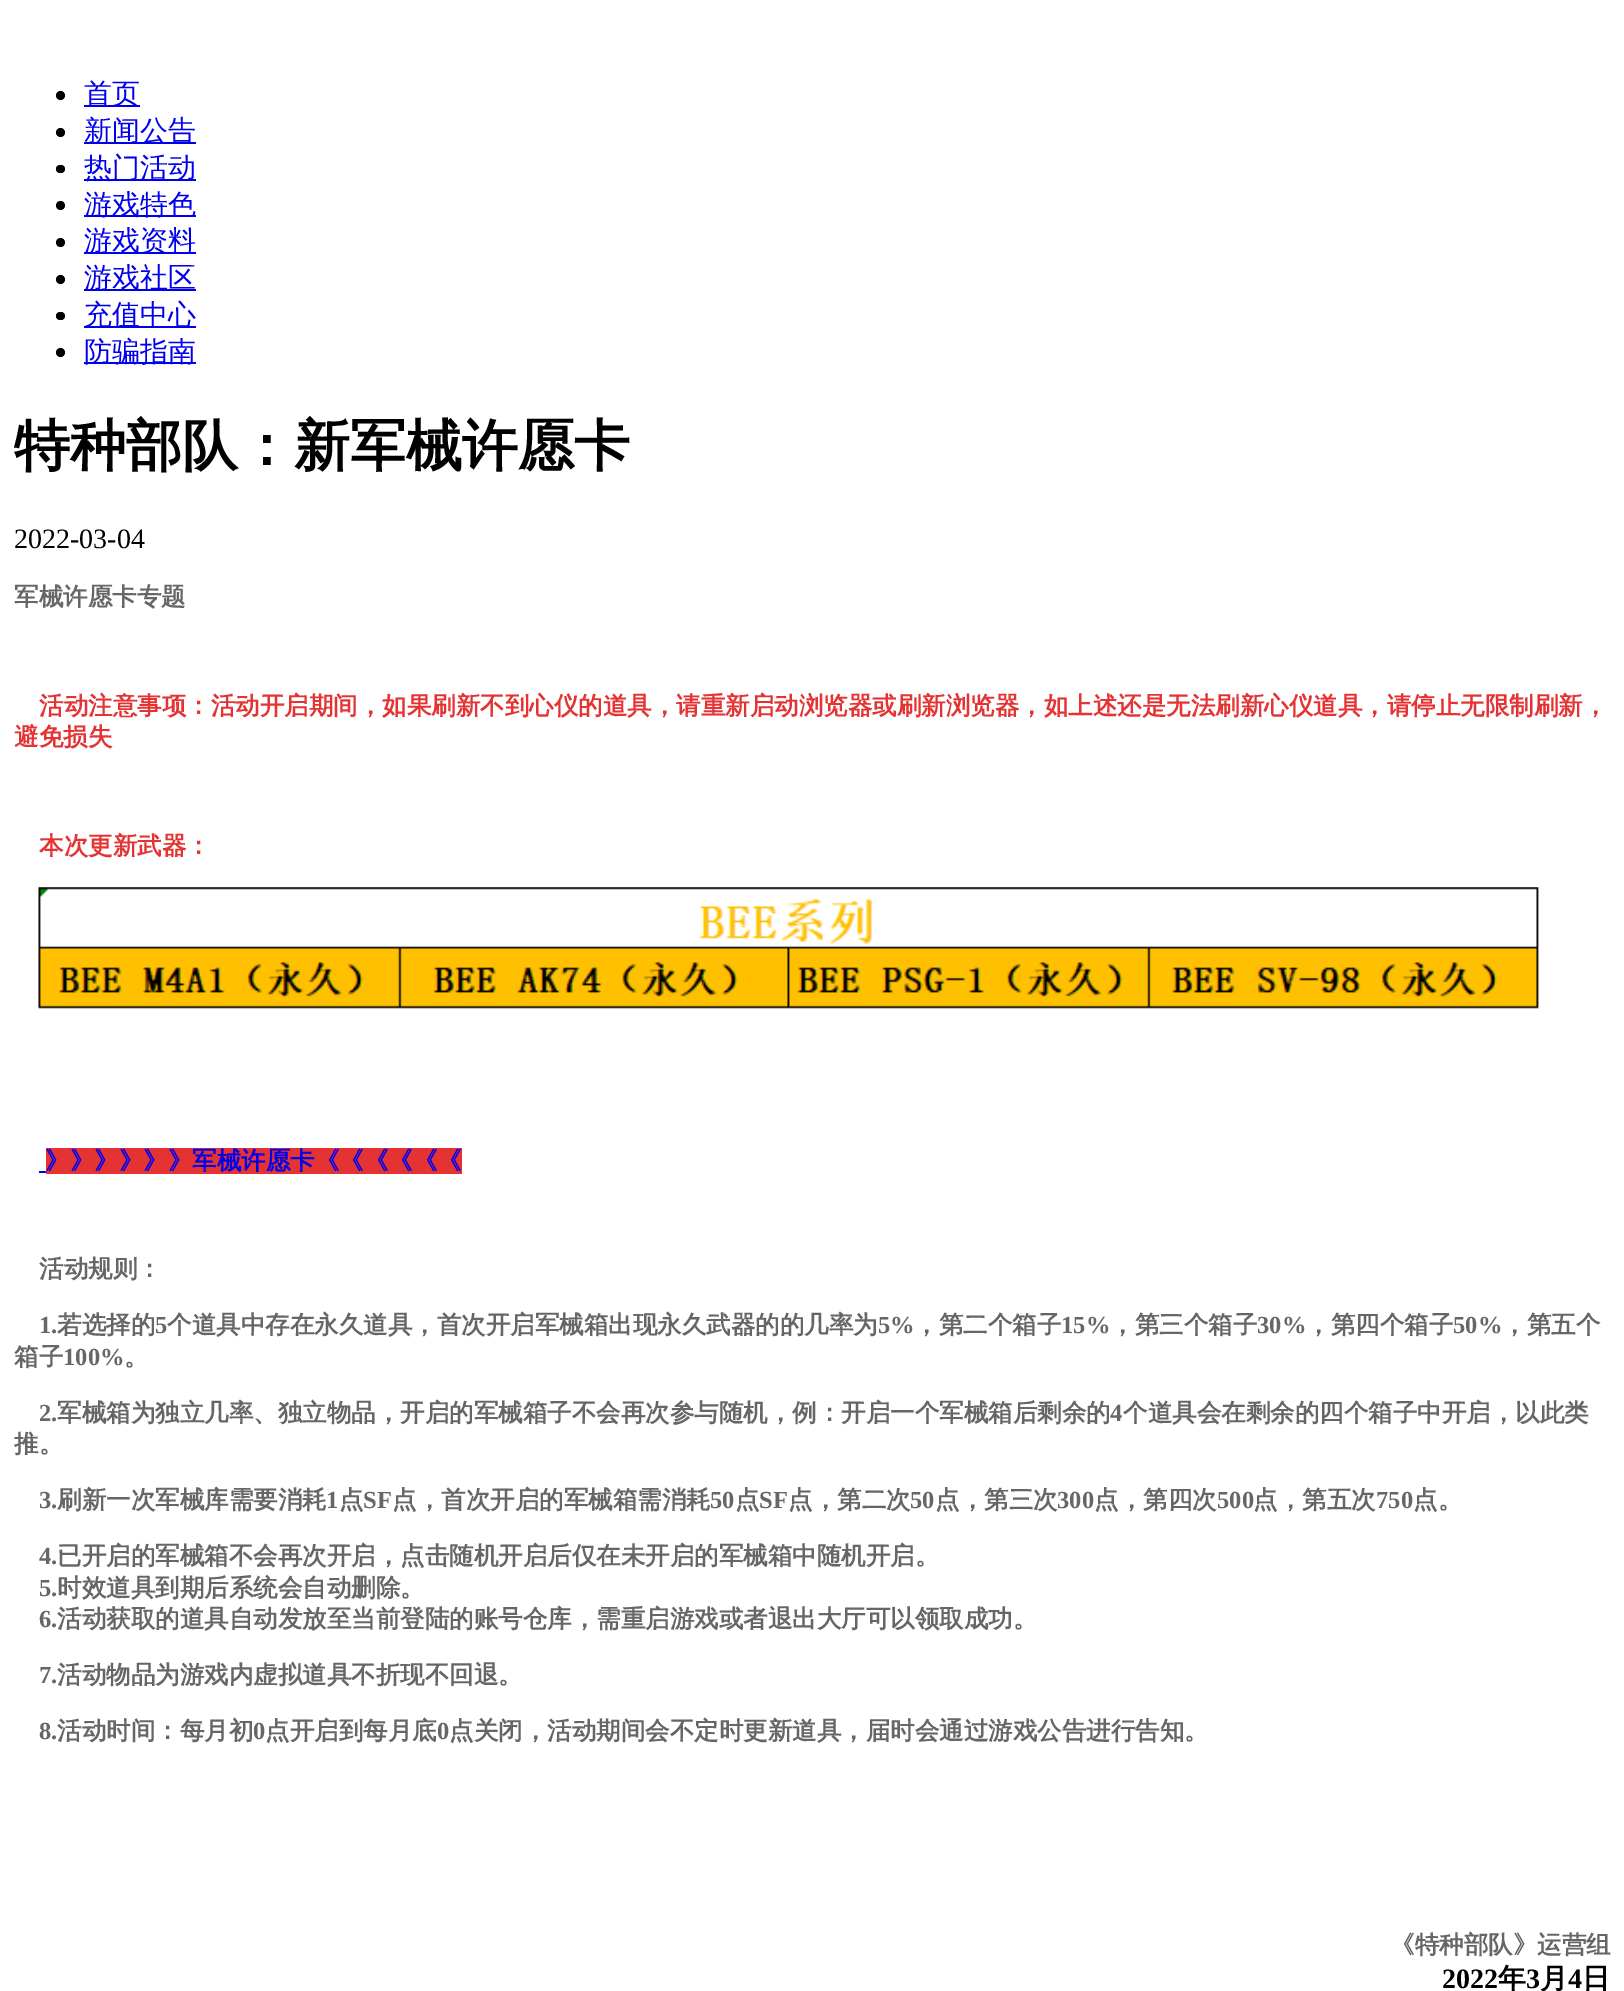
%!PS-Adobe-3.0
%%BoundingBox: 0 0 1624 1991
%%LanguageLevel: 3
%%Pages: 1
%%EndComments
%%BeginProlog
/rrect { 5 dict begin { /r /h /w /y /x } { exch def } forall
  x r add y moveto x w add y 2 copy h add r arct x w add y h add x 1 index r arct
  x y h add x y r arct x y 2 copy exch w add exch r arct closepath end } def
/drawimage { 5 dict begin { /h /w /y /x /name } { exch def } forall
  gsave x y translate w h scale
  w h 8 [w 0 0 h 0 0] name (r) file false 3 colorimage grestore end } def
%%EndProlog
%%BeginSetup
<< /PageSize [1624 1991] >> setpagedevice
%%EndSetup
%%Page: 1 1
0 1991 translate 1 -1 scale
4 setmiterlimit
1 setgray
0 0 1624 1991 rectfill
0 setgray
newpath 60.5 95.5 4.5 0 360 arc closepath fill
0 0 0.933 setrgbcolor
84 105 56 2 rectfill
0 setgray
newpath 60.5 132.5 4.5 0 360 arc closepath fill
0 0 0.933 setrgbcolor
84 142 112 2 rectfill
0 setgray
56 165 9 8 4 rrect fill
0 0 0.933 setrgbcolor
84 179 112 2 rectfill
0 setgray
newpath 60.5 205.5 4.5 0 360 arc closepath fill
0 0 0.933 setrgbcolor
84 215 112 2 rectfill
0 setgray
newpath 60.5 242.5 4.5 0 360 arc closepath fill
0 0 0.933 setrgbcolor
84 252 112 2 rectfill
0 setgray
newpath 60.5 279.5 4.5 0 360 arc closepath fill
0 0 0.933 setrgbcolor
84 289 112 2 rectfill
0 setgray
56 312 9 8 4 rrect fill
0 0 0.933 setrgbcolor
84 326 112 2 rectfill
0 setgray
newpath 60.5 352.5 4.5 0 360 arc closepath fill
0 0 0.933 setrgbcolor
84 362 112 2 rectfill
(images/1.raw) 38 887 1501 122 drawimage
39 1171 7 2 rectfill
0.898 0.2 0.2 setrgbcolor
46 1148 416 26 rectfill
/WenQuanYiZenHei-Medium [28 0 0 -28 0 0] selectfont
0 0 0.933 setrgbcolor
84 103 moveto (首页) show
84 140 moveto (新闻公告) show
84 177 moveto (热门活动) show
84 214 moveto (游戏特色) show
84 250 moveto (游戏资料) show
84 287 moveto (游戏社区) show
84 324 moveto (充值中心) show
84 361 moveto (防骗指南) show
/WenQuanYiZenHei-Bold [56 0 0 -56 0 0] selectfont
0 setgray
14 465 moveto (特种部队：新军械许愿卡) show
/LiberationSerif-Regular [28 0 0 -28 0 0] selectfont
14 548 moveto (2022-03-04) show
/WenQuanYiZenHei-Bold [24.5 0 0 -24.5 0 0] selectfont
0.4 setgray
14 605 moveto (军械许愿卡专题) show
0.898 0.2 0.2 setrgbcolor
39 714 moveto (活动注意事项：活动开启期间，如果刷新不到心仪的道具，请重新启动浏览器或刷新浏览器，如上述还是无法刷新心仪道具，请停止无限制刷新，) show
14 745 moveto (避免损失) show
39 854 moveto (本次更新武器：) show
0 0 0.933 setrgbcolor
45 1169 moveto (》》》》》》军械许愿卡《《《《《《) show
0.4 setgray
39 1277 moveto (活动规则：) show
/LiberationSerif-Bold [24.5 0 0 -24.5 0 0] selectfont
39 1333 moveto (1.) show
/WenQuanYiZenHei-Bold [24.5 0 0 -24.5 0 0] selectfont
57 1333 moveto (若选择的) show
/LiberationSerif-Bold [24.5 0 0 -24.5 0 0] selectfont
155 1333 moveto (5) show
/WenQuanYiZenHei-Bold [24.5 0 0 -24.5 0 0] selectfont
167 1333 moveto (个道具中存在永久道具，首次开启军械箱出现永久武器的的几率为) show
/LiberationSerif-Bold [24.5 0 0 -24.5 0 0] selectfont
878 1333 moveto (5%) show
/WenQuanYiZenHei-Bold [24.5 0 0 -24.5 0 0] selectfont
914 1333 moveto (，第二个箱子) show
/LiberationSerif-Bold [24.5 0 0 -24.5 0 0] selectfont
1061 1333 moveto (15%) show
/WenQuanYiZenHei-Bold [24.5 0 0 -24.5 0 0] selectfont
1110 1333 moveto (，第三个箱子) show
/LiberationSerif-Bold [24.5 0 0 -24.5 0 0] selectfont
1257 1333 moveto (30%) show
/WenQuanYiZenHei-Bold [24.5 0 0 -24.5 0 0] selectfont
1306 1333 moveto (，第四个箱子) show
/LiberationSerif-Bold [24.5 0 0 -24.5 0 0] selectfont
1453 1333 moveto (50%) show
/WenQuanYiZenHei-Bold [24.5 0 0 -24.5 0 0] selectfont
1502 1333 moveto (，第五个) show
14 1365 moveto (箱子) show
/LiberationSerif-Bold [24.5 0 0 -24.5 0 0] selectfont
63 1365 moveto (100%) show
/WenQuanYiZenHei-Bold [24.5 0 0 -24.5 0 0] selectfont
124 1365 moveto (。) show
/LiberationSerif-Bold [24.5 0 0 -24.5 0 0] selectfont
39 1421 moveto (2.) show
/WenQuanYiZenHei-Bold [24.5 0 0 -24.5 0 0] selectfont
57 1421 moveto (军械箱为独立几率、独立物品，开启的军械箱子不会再次参与随机，例：开启一个军械箱后剩余的) show
/LiberationSerif-Bold [24.5 0 0 -24.5 0 0] selectfont
1110 1421 moveto (4) show
/WenQuanYiZenHei-Bold [24.5 0 0 -24.5 0 0] selectfont
1123 1421 moveto (个道具会在剩余的四个箱子中开启，以此类) show
14 1452 moveto (推。) show
/LiberationSerif-Bold [24.5 0 0 -24.5 0 0] selectfont
39 1508 moveto (3.) show
/WenQuanYiZenHei-Bold [24.5 0 0 -24.5 0 0] selectfont
57 1508 moveto (刷新一次军械库需要消耗) show
/LiberationSerif-Bold [24.5 0 0 -24.5 0 0] selectfont
326 1508 moveto (1) show
/WenQuanYiZenHei-Bold [24.5 0 0 -24.5 0 0] selectfont
339 1508 moveto (点) show
/LiberationSerif-Bold [24.5 0 0 -24.5 0 0] selectfont
363 1508 moveto (SF) show
/WenQuanYiZenHei-Bold [24.5 0 0 -24.5 0 0] selectfont
392 1508 moveto (点，首次开启的军械箱需消耗) show
/LiberationSerif-Bold [24.5 0 0 -24.5 0 0] selectfont
710 1508 moveto (50) show
/WenQuanYiZenHei-Bold [24.5 0 0 -24.5 0 0] selectfont
735 1508 moveto (点) show
/LiberationSerif-Bold [24.5 0 0 -24.5 0 0] selectfont
759 1508 moveto (SF) show
/WenQuanYiZenHei-Bold [24.5 0 0 -24.5 0 0] selectfont
788 1508 moveto (点，第二次) show
/LiberationSerif-Bold [24.5 0 0 -24.5 0 0] selectfont
910 1508 moveto (50) show
/WenQuanYiZenHei-Bold [24.5 0 0 -24.5 0 0] selectfont
935 1508 moveto (点，第三次) show
/LiberationSerif-Bold [24.5 0 0 -24.5 0 0] selectfont
1057 1508 moveto (300) show
/WenQuanYiZenHei-Bold [24.5 0 0 -24.5 0 0] selectfont
1094 1508 moveto (点，第四次) show
/LiberationSerif-Bold [24.5 0 0 -24.5 0 0] selectfont
1217 1508 moveto (500) show
/WenQuanYiZenHei-Bold [24.5 0 0 -24.5 0 0] selectfont
1253 1508 moveto (点，第五次) show
/LiberationSerif-Bold [24.5 0 0 -24.5 0 0] selectfont
1376 1508 moveto (750) show
/WenQuanYiZenHei-Bold [24.5 0 0 -24.5 0 0] selectfont
1413 1508 moveto (点。) show
/LiberationSerif-Bold [24.5 0 0 -24.5 0 0] selectfont
39 1564 moveto (4.) show
/WenQuanYiZenHei-Bold [24.5 0 0 -24.5 0 0] selectfont
57 1564 moveto (已开启的军械箱不会再次开启，点击随机开启后仅在未开启的军械箱中随机开启。) show
/LiberationSerif-Bold [24.5 0 0 -24.5 0 0] selectfont
39 1596 moveto (5.) show
/WenQuanYiZenHei-Bold [24.5 0 0 -24.5 0 0] selectfont
57 1596 moveto (时效道具到期后系统会自动删除。) show
/LiberationSerif-Bold [24.5 0 0 -24.5 0 0] selectfont
39 1627 moveto (6.) show
/WenQuanYiZenHei-Bold [24.5 0 0 -24.5 0 0] selectfont
57 1627 moveto (活动获取的道具自动发放至当前登陆的账号仓库，需重启游戏或者退出大厅可以领取成功。) show
/LiberationSerif-Bold [24.5 0 0 -24.5 0 0] selectfont
39 1683 moveto (7.) show
/WenQuanYiZenHei-Bold [24.5 0 0 -24.5 0 0] selectfont
57 1683 moveto (活动物品为游戏内虚拟道具不折现不回退。) show
/LiberationSerif-Bold [24.5 0 0 -24.5 0 0] selectfont
39 1739 moveto (8.) show
/WenQuanYiZenHei-Bold [24.5 0 0 -24.5 0 0] selectfont
57 1739 moveto (活动时间：每月初) show
/LiberationSerif-Bold [24.5 0 0 -24.5 0 0] selectfont
253 1739 moveto (0) show
/WenQuanYiZenHei-Bold [24.5 0 0 -24.5 0 0] selectfont
265 1739 moveto (点开启到每月底) show
/LiberationSerif-Bold [24.5 0 0 -24.5 0 0] selectfont
437 1739 moveto (0) show
/WenQuanYiZenHei-Bold [24.5 0 0 -24.5 0 0] selectfont
449 1739 moveto (点关闭，活动期间会不定时更新道具，届时会通过游戏公告进行告知。) show
1390 1953 moveto (《特种部队》运营组) show
/LiberationSerif-Bold [28 0 0 -28 0 0] selectfont
0 setgray
1442 1988 moveto (2022) show
/WenQuanYiZenHei-Bold [28 0 0 -28 0 0] selectfont
1498 1988 moveto (年) show
/LiberationSerif-Bold [28 0 0 -28 0 0] selectfont
1526 1988 moveto (3) show
/WenQuanYiZenHei-Bold [28 0 0 -28 0 0] selectfont
1540 1988 moveto (月) show
/LiberationSerif-Bold [28 0 0 -28 0 0] selectfont
1568 1988 moveto (4) show
/WenQuanYiZenHei-Bold [28 0 0 -28 0 0] selectfont
1582 1988 moveto (日) show
showpage
%%EOF
